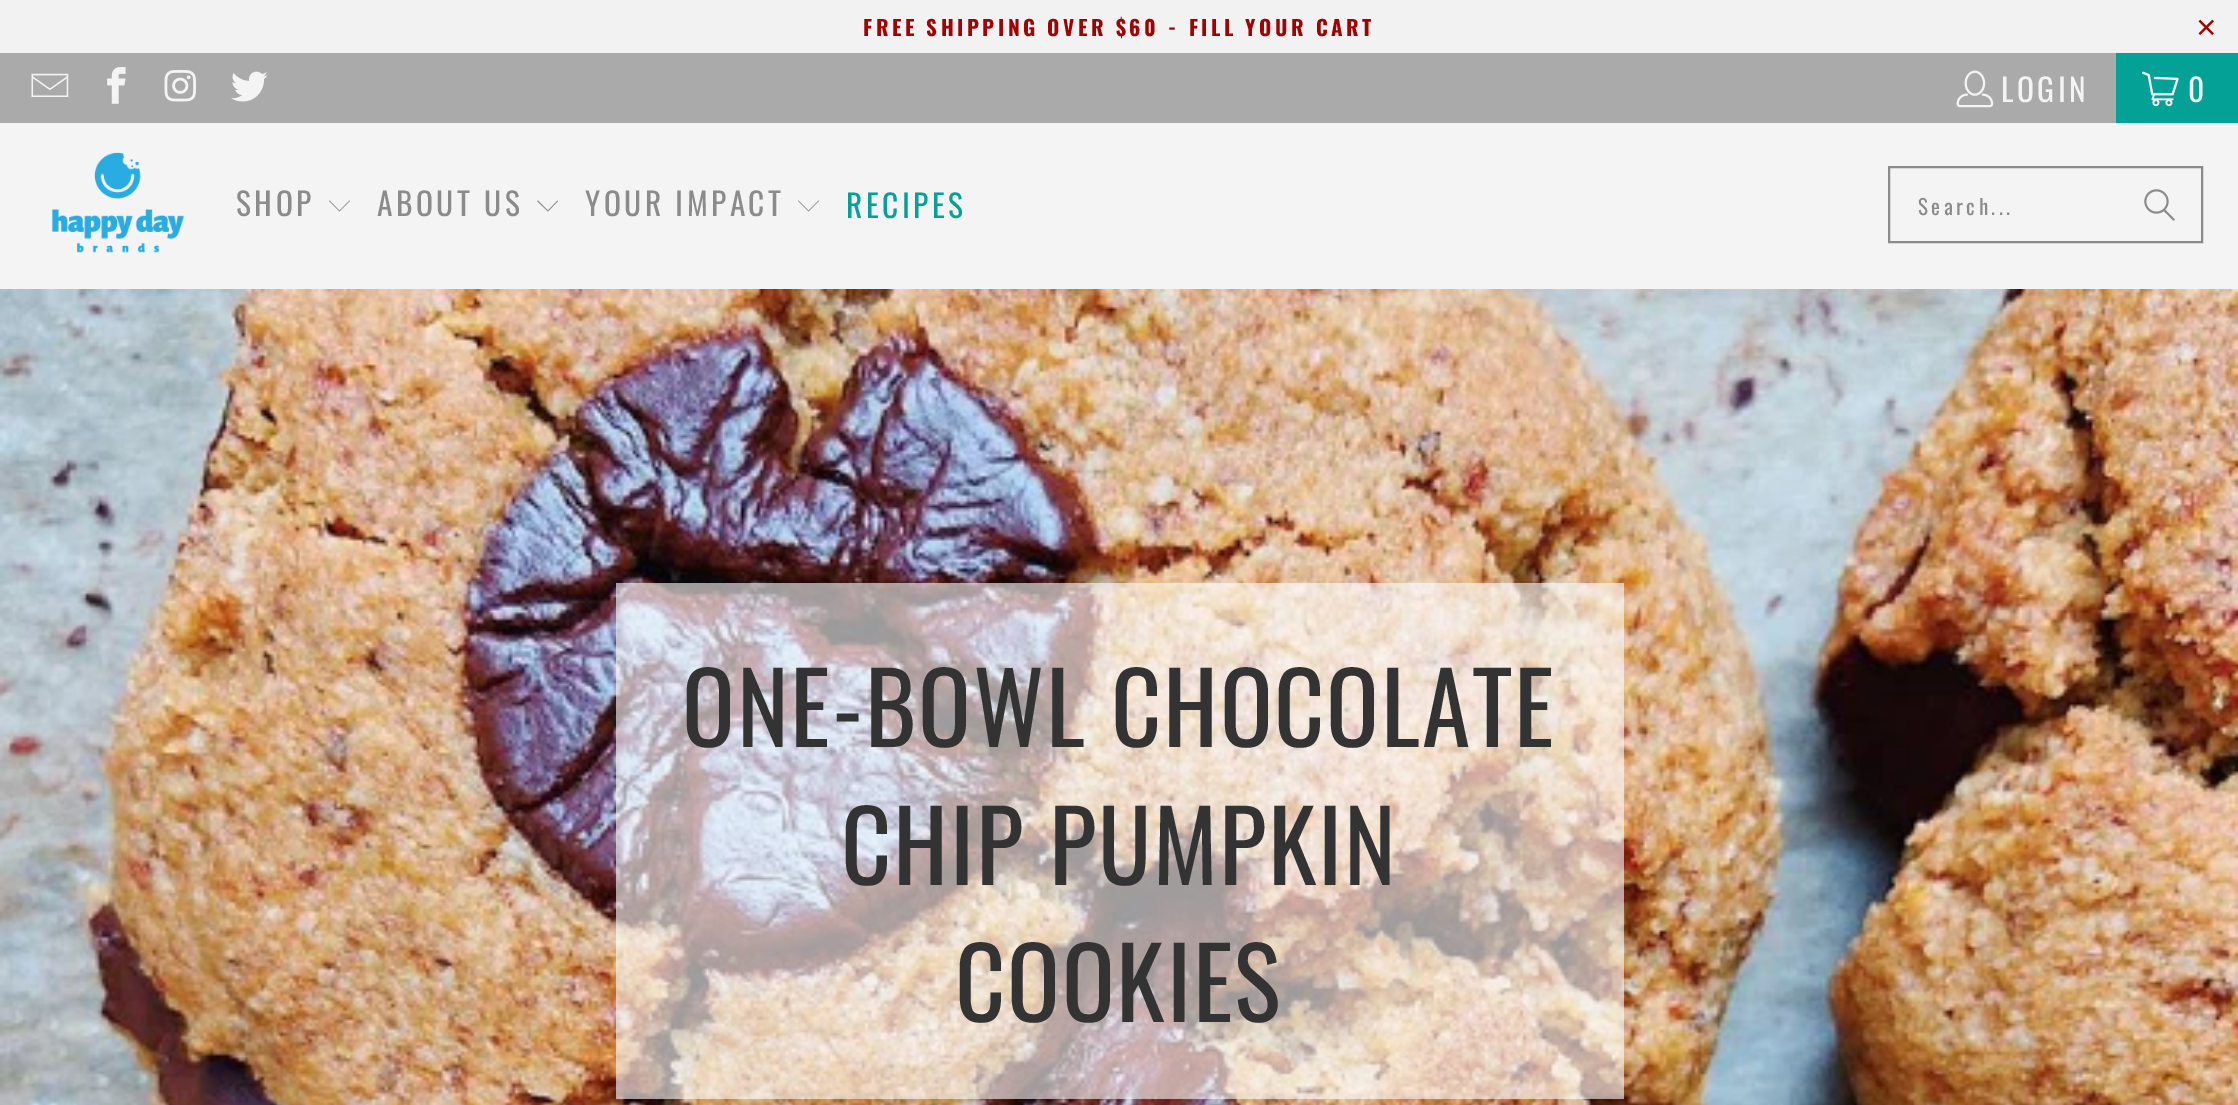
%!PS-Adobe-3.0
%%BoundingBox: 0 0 2238 1105
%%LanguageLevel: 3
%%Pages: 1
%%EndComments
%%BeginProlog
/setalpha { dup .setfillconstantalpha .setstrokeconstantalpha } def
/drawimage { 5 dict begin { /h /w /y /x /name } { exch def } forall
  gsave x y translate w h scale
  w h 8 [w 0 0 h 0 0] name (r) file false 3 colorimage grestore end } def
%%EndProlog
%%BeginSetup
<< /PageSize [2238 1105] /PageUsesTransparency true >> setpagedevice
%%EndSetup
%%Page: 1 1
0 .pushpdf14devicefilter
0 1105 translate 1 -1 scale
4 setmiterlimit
1 setgray
0 0 2238 1105 rectfill
0.949 setgray
0 0 2238 53 rectfill
0.667 setgray
0 53 2116 70 rectfill
(images/1.raw) 31 73 38 24 drawimage
(images/2.raw) 107 67 19 37 drawimage
(images/3.raw) 164 70 32 32 drawimage
(images/4.raw) 231 71 37 31 drawimage
(images/5.raw) 1956 70 38 38 drawimage
0.012 0.631 0.588 setrgbcolor
2116 53 122 70 rectfill
(images/6.raw) 2142 71 37 36 drawimage
0.957 setgray
0 123 2238 166 rectfill
(images/7.raw) 52 152 133 101 drawimage
0.549 0.545 0.545 setrgbcolor
newpath 339.5 211.5 moveto 329 201 lineto 329.5 200.5 lineto 339.5 210.5 lineto 349.5 200.5 lineto 350 201 lineto closepath fill
newpath 548 211.5 moveto 537 201 lineto 538 200.5 lineto 548 210.5 lineto 557.5 200.5 lineto 558 201 lineto closepath fill
newpath 808.5 211.5 moveto 798 201 lineto 798.5 200.5 lineto 808.5 210.5 lineto 818.5 200.5 lineto 819 201 lineto closepath fill
2 setlinewidth
1889 167 313 75 rectstroke
(images/8.raw) 2144 189 31 32 drawimage
(images/9.raw) 0 289 2238 816 drawimage
0.6 setalpha
1 setgray
616 583 1008 516 rectfill
/Oswald-Bold [21 0 0 -21 0 0] selectfont
1 setalpha
0.631 0.012 0.012 setrgbcolor
863 36 moveto 3.5 0 (FREE SHIPPING OVER $60 - FILL YOUR CART) ashow
/LiberationSans-Regular [35 0 0 -35 0 0] selectfont
2196 39 moveto 3.5 0 (×) ashow
/Oswald-Regular [31.5 0 0 -31.5 0 0] selectfont
0.957 setgray
2001 102 moveto 3.5 0 (LOGIN) ashow
2188 102 moveto 3.5 0 (0) ashow
0.549 0.545 0.545 setrgbcolor
236 216 moveto 3.5 0 (SHOP) ashow
377 216 moveto 3.5 0 (ABOUT US) ashow
585 216 moveto 3.5 0 (YOUR IMPACT) ashow
0.012 0.631 0.588 setrgbcolor
846 218 moveto 3.5 0 (RECIPES) ashow
/Oswald-Regular [21 0 0 -21 0 0] selectfont
0.549 0.545 0.545 setrgbcolor
1918 215 moveto 3.5 0 (Search...) ashow
/Oswald-Regular [98 0 0 -98 0 0] selectfont
0.2 setgray
682 747 moveto 1.75 0 (ONE-BOWL CHOCOLATE) ashow
841 885 moveto 1.75 0 (CHIP PUMPKIN) ashow
955 1022 moveto 1.75 0 (COOKIES) ashow
.poppdf14devicefilter showpage
%%EOF
